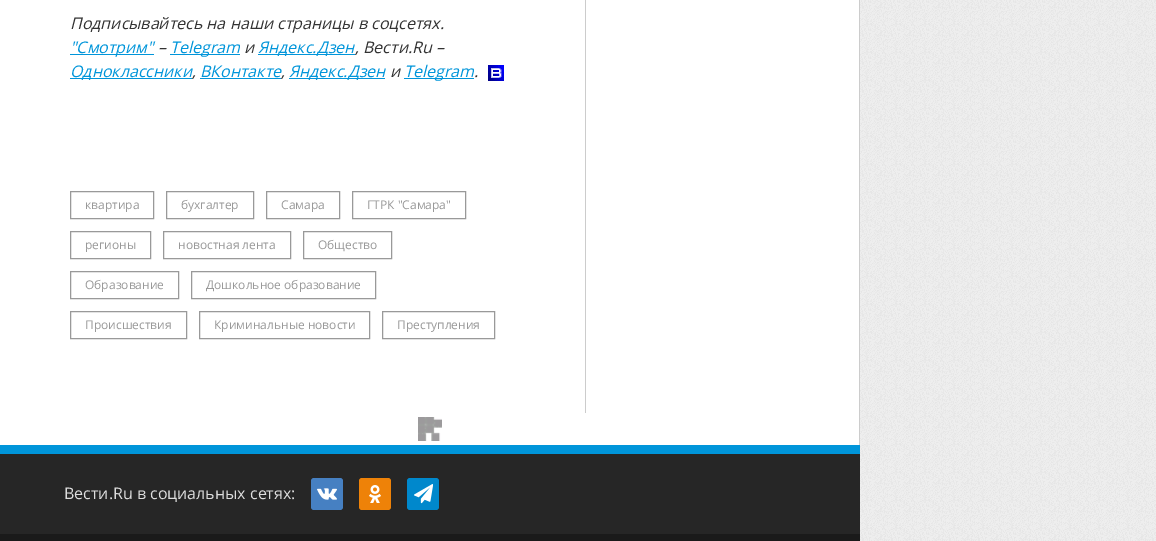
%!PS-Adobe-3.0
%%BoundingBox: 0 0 1156 541
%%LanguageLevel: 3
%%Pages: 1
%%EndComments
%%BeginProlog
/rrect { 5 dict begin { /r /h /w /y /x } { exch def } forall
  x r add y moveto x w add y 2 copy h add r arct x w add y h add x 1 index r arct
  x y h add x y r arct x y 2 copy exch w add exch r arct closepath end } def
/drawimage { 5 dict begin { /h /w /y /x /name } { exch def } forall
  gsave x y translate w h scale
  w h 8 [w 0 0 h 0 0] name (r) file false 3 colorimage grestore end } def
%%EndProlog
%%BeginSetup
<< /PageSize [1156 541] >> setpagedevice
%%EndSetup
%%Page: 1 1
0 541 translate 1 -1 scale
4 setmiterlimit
1 setgray
0 0 1156 541 rectfill
(images/1.raw) 860 0 296 541 drawimage
0.8 setgray
859 0 1 445 rectfill
585 0 1 413 rectfill
0 0.584 0.855 setrgbcolor
70 54 84 1 rectfill
170 54 70 1 rectfill
258 54 97 1 rectfill
(images/2.raw) 488 65 16 16 drawimage
70 78 122 1 rectfill
200 78 81 1 rectfill
289 78 96 1 rectfill
404 78 70 1 rectfill
0.6 setgray
70.5 191.5 83 27 rectstroke
166.5 191.5 87 27 rectstroke
266.5 191.5 73 27 rectstroke
352.5 191.5 113 27 rectstroke
70.5 231.5 80 27 rectstroke
163.5 231.5 127 27 rectstroke
303.5 231.5 88 27 rectstroke
70.5 271.5 108 27 rectstroke
191.5 271.5 184 27 rectstroke
70.5 311.5 116 27 rectstroke
199.5 311.5 170 27 rectstroke
382.5 311.5 112 27 rectstroke
(images/3.raw) 418 417 24 24 drawimage
0.102 setgray
0 534 860 7 rectfill
0 0.584 0.855 setrgbcolor
0 445 860 9 rectfill
0.149 setgray
0 454 860 80 rectfill
0.275 0.502 0.761 setrgbcolor
311 478 32 32 3 rrect fill
(images/4.raw) 317 488 20 12 drawimage
0.933 0.51 0.031 setrgbcolor
359 478 32 32 3 rrect fill
(images/5.raw) 369 485 12 18 drawimage
0 0.533 0.8 setrgbcolor
407 478 32 32 3 rrect fill
(images/6.raw) 414 484 19 20 drawimage
/OpenSans-Italic [16 0 0 -16 0 0] selectfont
0.2 setgray
70 29 moveto (Подписывайтесь на наши страницы в соцсетях.) show
0 0.584 0.855 setrgbcolor
70 53 moveto ("Смотрим") show
0.2 setgray
158 53 moveto (–) show
0 0.584 0.855 setrgbcolor
170 53 moveto (Telegram) show
0.2 setgray
244 53 moveto (и) show
0 0.584 0.855 setrgbcolor
258 53 moveto (Яндекс.Дзен) show
0.2 setgray
355 53 moveto (, Вести.Ru –) show
0 0.584 0.855 setrgbcolor
70 77 moveto (Одноклассники) show
200 77 moveto (ВКонтакте) show
289 77 moveto (Яндекс.Дзен) show
0.2 setgray
390 77 moveto (и) show
0 0.584 0.855 setrgbcolor
404 77 moveto (Telegram) show
0.2 setgray
192 77 moveto (,) show
281 77 moveto (,) show
474 77 moveto (.) show
/OpenSans-Regular [12 0 0 -12 0 0] selectfont
0.6 setgray
85 209 moveto (квартира) show
181 209 moveto (бухгалтер) show
281 209 moveto (Самара) show
367 209 moveto (ГТРК "Самара") show
85 249 moveto (регионы) show
178 249 moveto (новостная лента) show
318 249 moveto (Общество) show
85 289 moveto (Образование) show
206 289 moveto (Дошкольное образование) show
85 329 moveto (Происшествия) show
214 329 moveto (Криминальные новости) show
397 329 moveto (Преступления) show
/OpenSans-Regular [16 0 0 -16 0 0] selectfont
0.867 setgray
64 499 moveto (Вести.Ru в социальных сетях:) show
showpage
%%EOF
